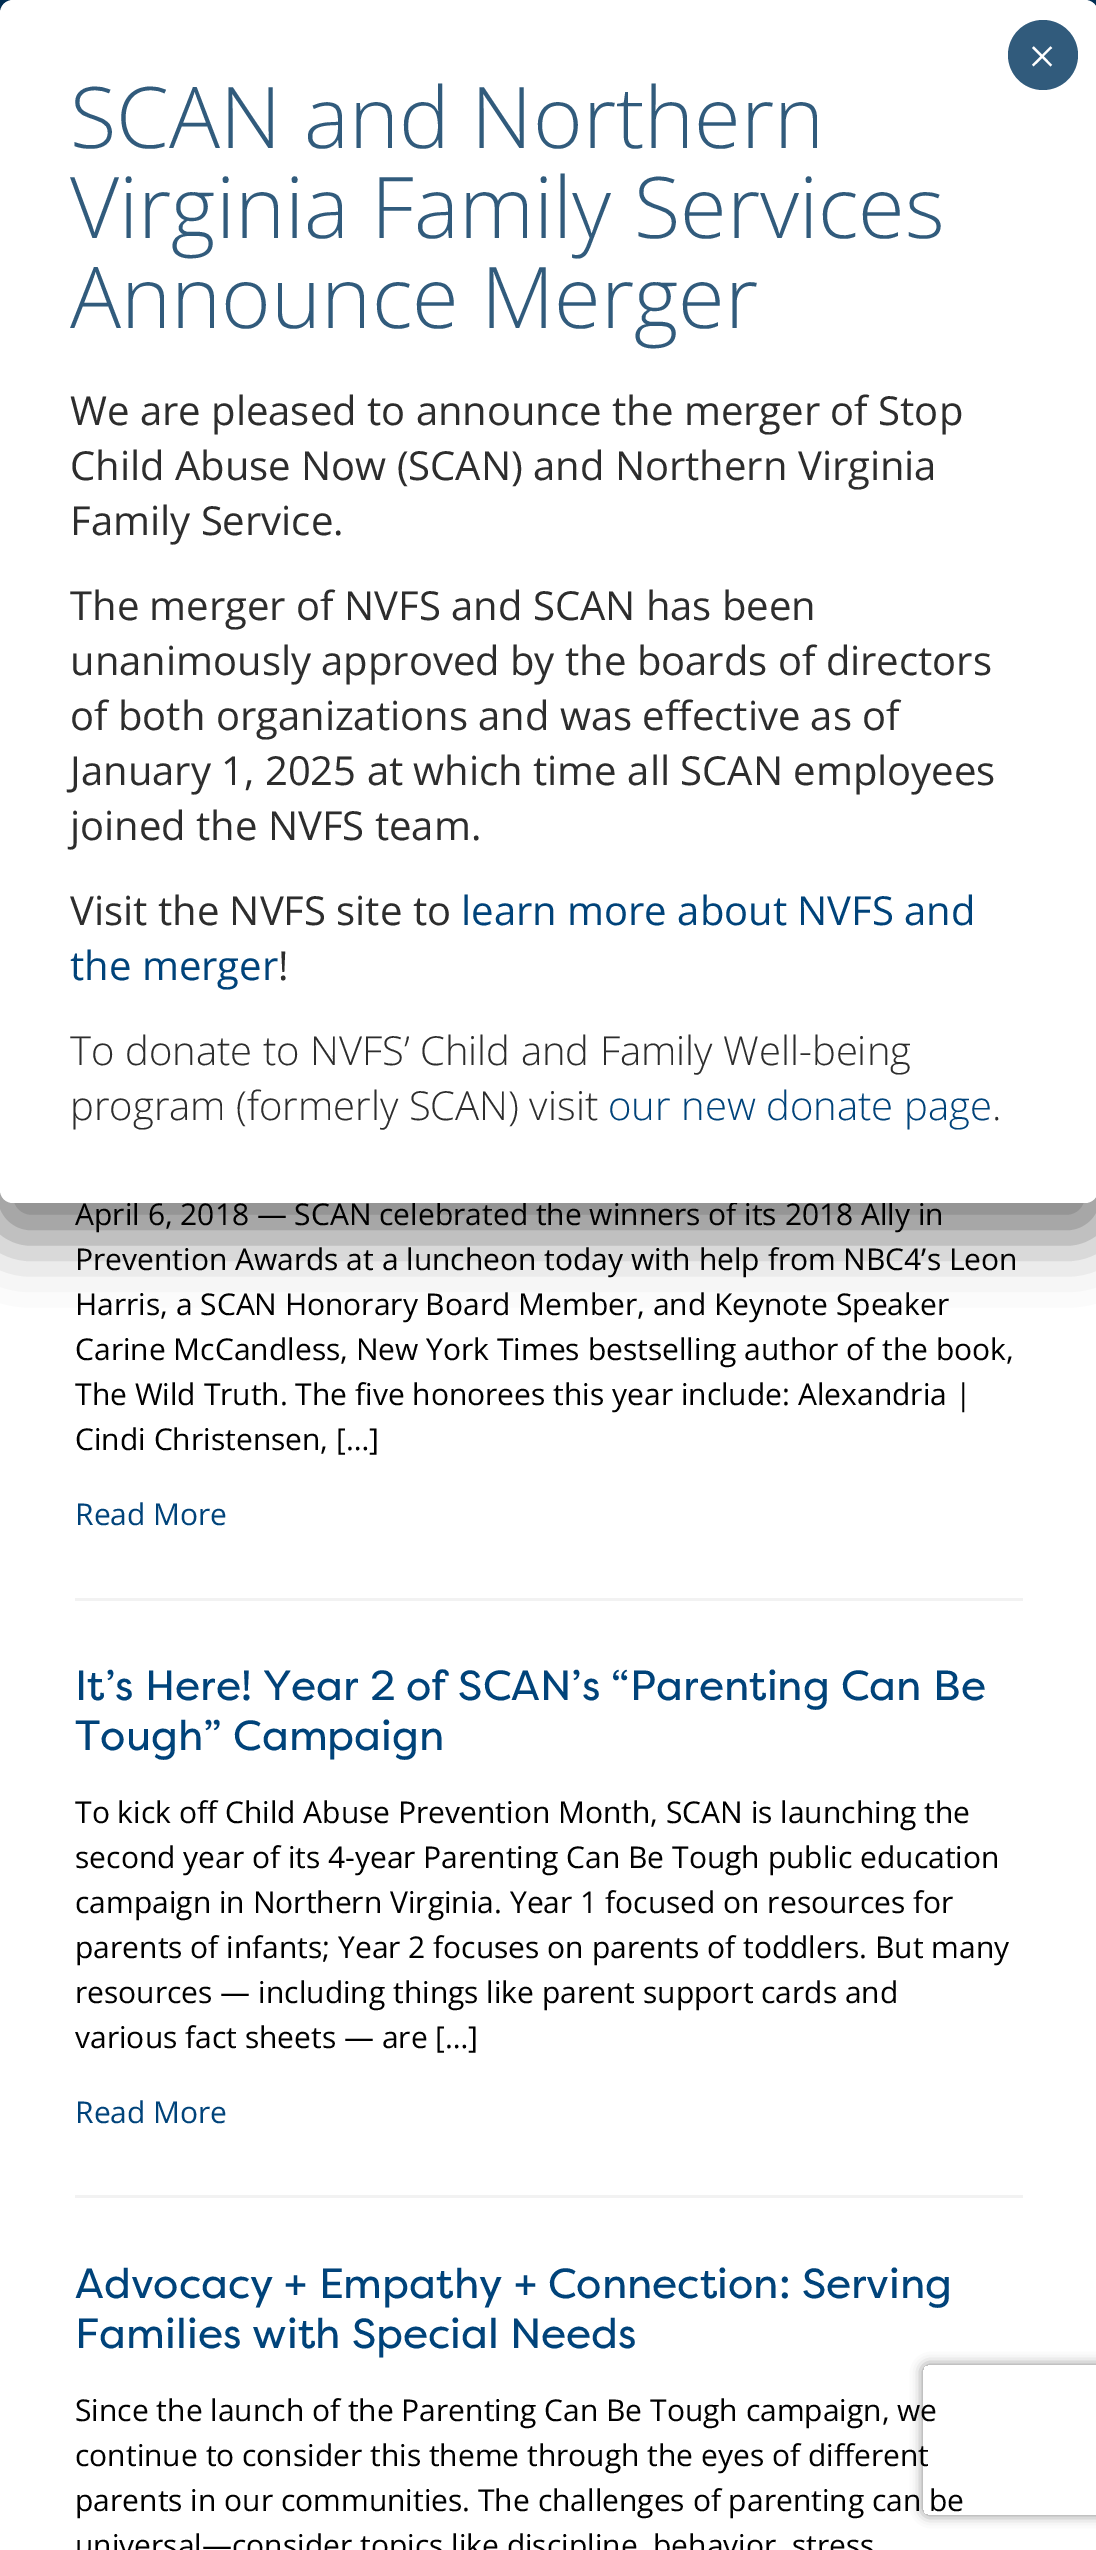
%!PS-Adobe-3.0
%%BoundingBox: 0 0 1096 2550
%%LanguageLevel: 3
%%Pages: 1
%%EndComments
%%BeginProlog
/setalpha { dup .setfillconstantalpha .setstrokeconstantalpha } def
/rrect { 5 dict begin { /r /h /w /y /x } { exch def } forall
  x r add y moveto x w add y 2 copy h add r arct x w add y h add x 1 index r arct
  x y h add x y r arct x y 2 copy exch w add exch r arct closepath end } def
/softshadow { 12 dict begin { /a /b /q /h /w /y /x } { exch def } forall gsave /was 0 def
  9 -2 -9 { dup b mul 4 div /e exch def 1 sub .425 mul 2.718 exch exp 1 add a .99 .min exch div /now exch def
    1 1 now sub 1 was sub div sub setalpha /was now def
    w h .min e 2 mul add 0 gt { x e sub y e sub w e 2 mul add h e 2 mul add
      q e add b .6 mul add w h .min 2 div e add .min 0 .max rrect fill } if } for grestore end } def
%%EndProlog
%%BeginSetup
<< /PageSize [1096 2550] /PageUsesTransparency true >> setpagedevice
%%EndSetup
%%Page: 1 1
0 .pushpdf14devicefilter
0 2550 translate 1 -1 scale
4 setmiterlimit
1 setgray
0 0 1096 2550 rectfill
0.004 0.212 0.384 setrgbcolor
0 0 1096 13 rectfill
0.008 setgray
-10 15 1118 1223 23 31 0.5 softshadow
0.949 setgray
75 1598 948 3 rectfill
75 2195 948 3 rectfill
gsave
newpath 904 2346 moveto 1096 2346 lineto 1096 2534 lineto 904 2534 lineto closepath 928 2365 moveto 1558 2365 lineto 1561 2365 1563 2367 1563 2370 curveto 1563 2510 lineto 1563 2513 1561 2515 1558 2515 curveto 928 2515 lineto 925 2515 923 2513 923 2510 curveto 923 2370 lineto 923 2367 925 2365 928 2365 curveto closepath eoclip newpath
0.502 setgray
923 2365 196 150 5 6 1 softshadow
grestore
/OpenSans-Regular [30 0 0 -30 0 0] selectfont
0 setgray
75 1225 moveto (April 6, 2018 — SCAN celebrated the winners of its 2018 Ally in) show
1 setgray
0 0 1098 1203 13 rrect fill
0.192 0.357 0.486 setrgbcolor
newpath 1043 55 35 0 360 arc closepath fill
/LiberationSerif-Regular [50 0 0 -50 0 0] selectfont
1 setgray
1028 73 moveto (×) show
/OpenSans-Light [40 0 0 -40 0 0] selectfont
0.176 setgray
992 1120 moveto (.) show
0 0.263 0.478 setrgbcolor
608 1120 moveto (our new donate page) show
0.176 setgray
70 1120 moveto (program \(formerly SCAN\) visit) show
70 1065 moveto (To donate to NVFS’ Child and Family Well-being) show
/OpenSans-Regular [40 0 0 -40 0 0] selectfont
278 980 moveto (!) show
0 0.263 0.478 setrgbcolor
70 980 moveto (the merger) show
461 925 moveto (learn more about NVFS and) show
0.176 setgray
70 925 moveto (Visit the NVFS site to) show
70 840 moveto (joined the NVFS team.) show
70 785 moveto (January 1, 2025 at which time all SCAN employees) show
70 730 moveto (of both organizations and was effective as of) show
70 675 moveto (unanimously approved by the boards of directors) show
70 620 moveto (The merger of NVFS and SCAN has been) show
70 535 moveto (Family Service.) show
70 480 moveto (Child Abuse Now \(SCAN\) and Northern Virginia) show
70 425 moveto (We are pleased to announce the merger of Stop) show
/OpenSans-Light [85 0 0 -85 0 0] selectfont
0.192 0.357 0.486 setrgbcolor
70 328 moveto (Announce Merger) show
70 238 moveto (Virginia Family Services) show
70 148 moveto (SCAN and Northern) show
/OpenSans-Regular [30 0 0 -30 0 0] selectfont
0 setgray
75 1270 moveto (Prevention Awards at a luncheon today with help from NBC4’s Leon) show
75 1315 moveto (Harris, a SCAN Honorary Board Member, and Keynote Speaker) show
75 1360 moveto (Carine McCandless, New York Times bestselling author of the book,) show
75 1405 moveto (The Wild Truth. The five honorees this year include: Alexandria |) show
75 1450 moveto (Cindi Christensen, […]) show
0 0.263 0.478 setrgbcolor
75 1525 moveto (Read More) show
/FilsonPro-Regular [42 0 0 -42 0 0] selectfont
75 1700 moveto (It’s Here! Year 2 of SCAN’s “Parenting Can Be) show
75 1750 moveto (Tough” Campaign) show
/OpenSans-Regular [30 0 0 -30 0 0] selectfont
0 setgray
75 1823 moveto (To kick off Child Abuse Prevention Month, SCAN is launching the) show
75 1868 moveto (second year of its 4-year Parenting Can Be Tough public education) show
75 1913 moveto (campaign in Northern Virginia. Year 1 focused on resources for) show
75 1958 moveto (parents of infants; Year 2 focuses on parents of toddlers. But many) show
75 2003 moveto (resources — including things like parent support cards and) show
75 2048 moveto (various fact sheets — are […]) show
0 0.263 0.478 setrgbcolor
75 2123 moveto (Read More) show
/FilsonPro-Regular [42 0 0 -42 0 0] selectfont
75 2298 moveto (Advocacy + Empathy + Connection: Serving) show
75 2348 moveto (Families with Special Needs) show
/OpenSans-Regular [30 0 0 -30 0 0] selectfont
0 setgray
75 2421 moveto (Since the launch of the Parenting Can Be Tough campaign, we) show
75 2466 moveto (continue to consider this theme through the eyes of different) show
75 2511 moveto (parents in our communities. The challenges of parenting can be) show
75 2556 moveto (universal—consider topics like discipline, behavior, stress) show
.poppdf14devicefilter showpage
%%EOF
